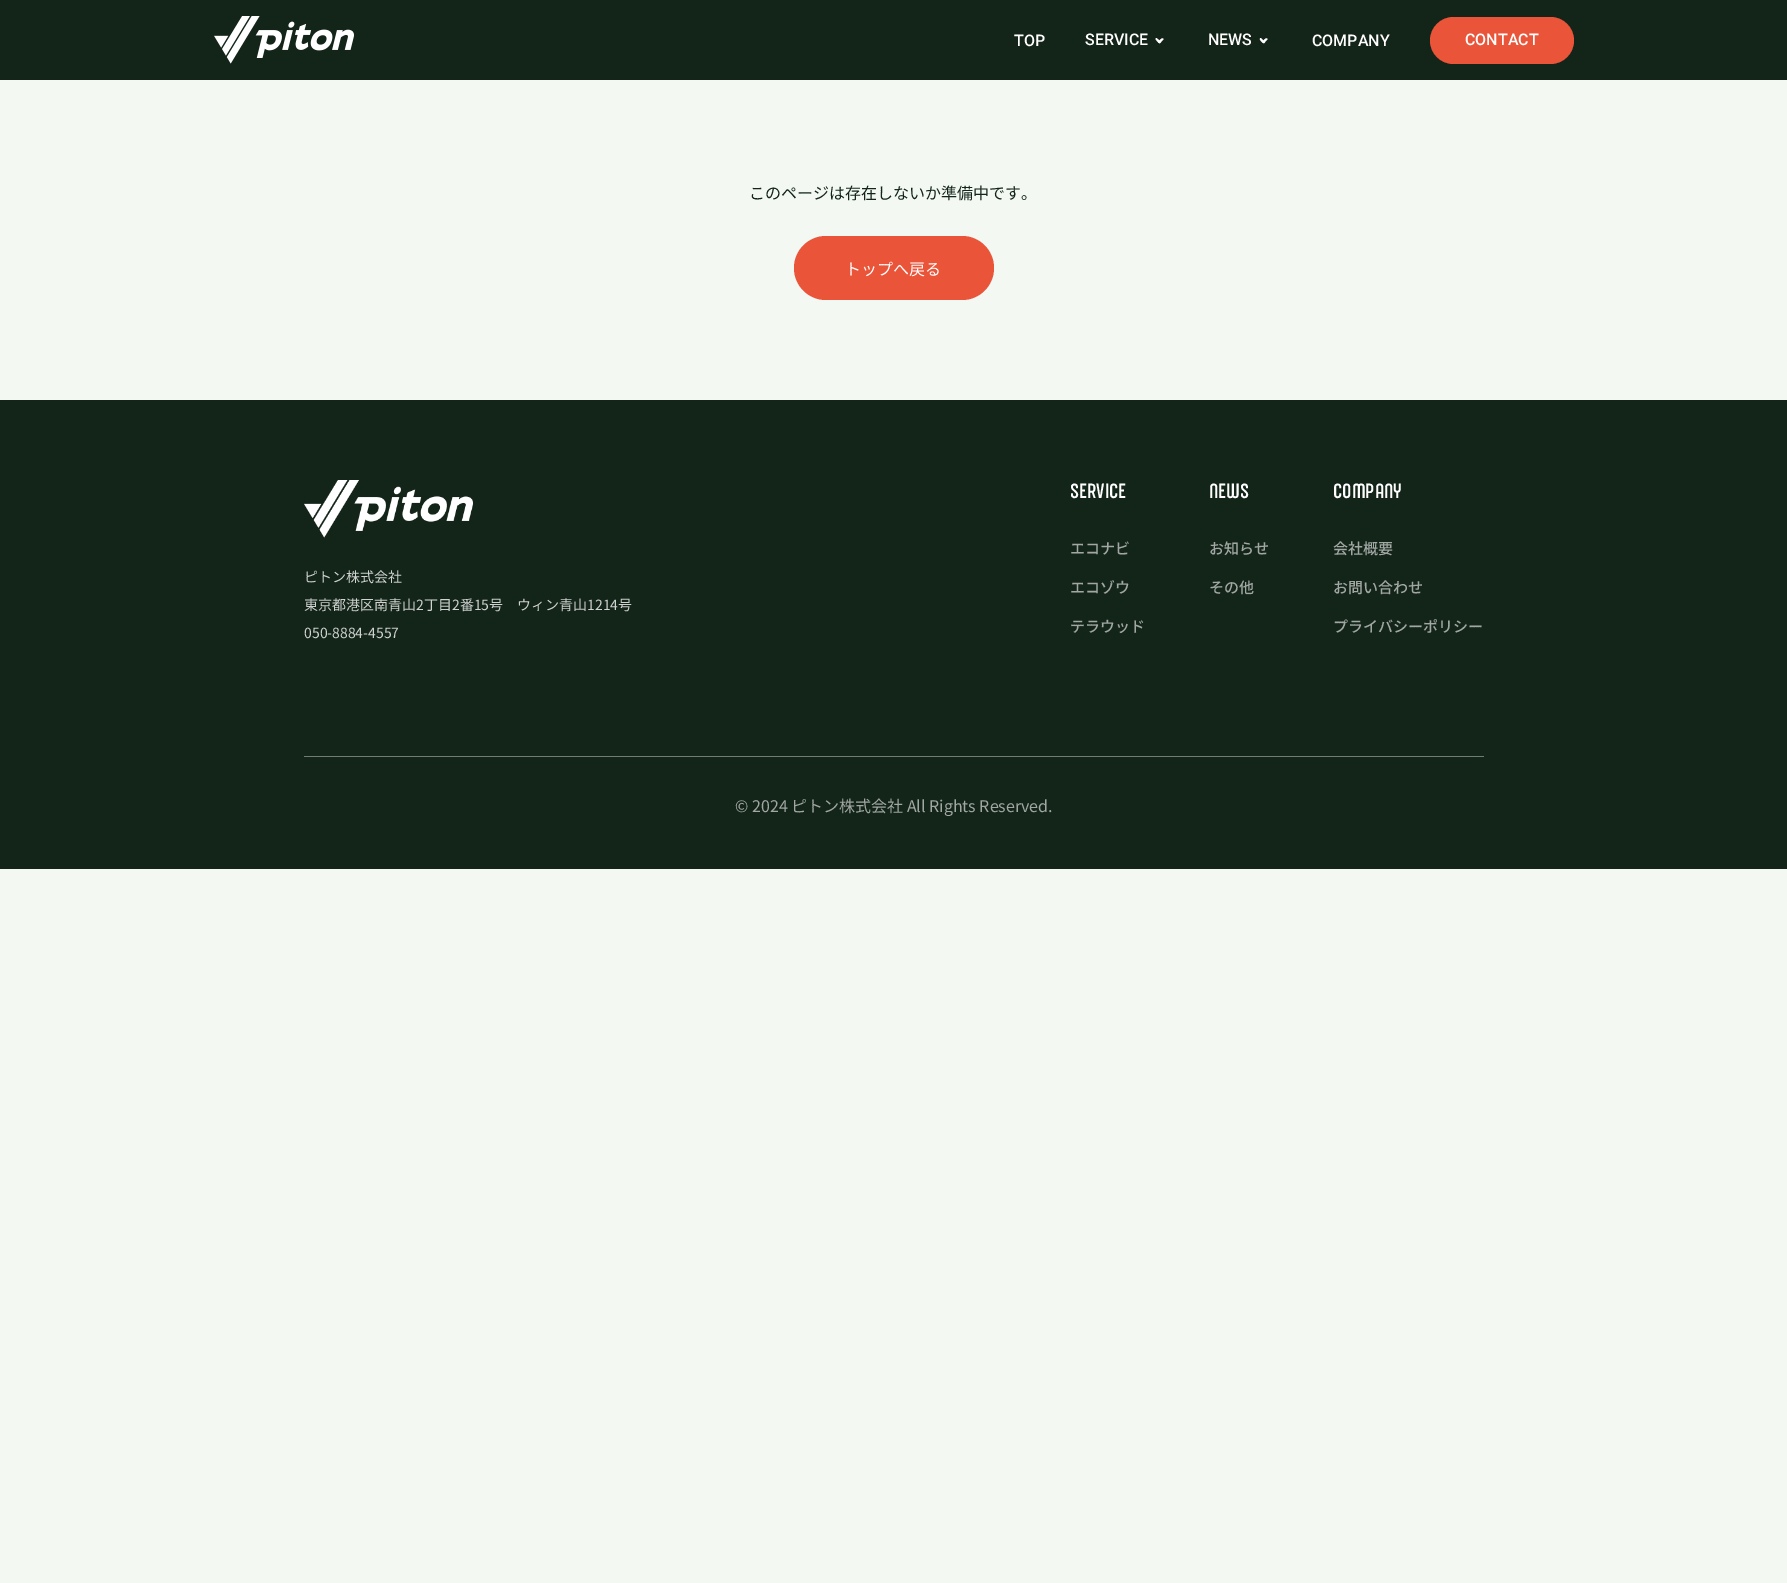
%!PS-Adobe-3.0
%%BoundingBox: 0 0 1787 1583
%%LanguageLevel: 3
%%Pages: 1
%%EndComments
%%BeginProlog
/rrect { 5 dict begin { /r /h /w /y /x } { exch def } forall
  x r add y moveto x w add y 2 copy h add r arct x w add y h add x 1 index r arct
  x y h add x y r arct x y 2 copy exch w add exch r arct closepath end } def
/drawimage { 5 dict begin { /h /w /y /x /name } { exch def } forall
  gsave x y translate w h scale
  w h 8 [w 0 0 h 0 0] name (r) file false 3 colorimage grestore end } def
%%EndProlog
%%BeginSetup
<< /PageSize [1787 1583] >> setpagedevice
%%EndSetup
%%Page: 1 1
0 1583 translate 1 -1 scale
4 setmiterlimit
0.953 0.973 0.953 setrgbcolor
0 0 1787 1583 rectfill
0.075 0.141 0.098 setrgbcolor
0 0 1787 80 rectfill
(images/1.raw) 214 16 140 48 drawimage
1 setgray
newpath 1157 38.5 moveto 1159 40 lineto 1159.5 40.5 1160.5 41.5 1160.5 42.5 curveto 1159.5 44.5 1157 41 1156.5 40.5 curveto 1154.5 38.5 1156.5 37.5 1157 38.5 curveto closepath fill
newpath 1163 40 moveto 1161.5 41.5 lineto 1161 42 1160 43.5 1159 43 curveto 1157 42 1160.5 39.5 1161 39 curveto 1163 37.5 1164 39 1163 40 curveto closepath fill
newpath 1261.5 38.5 moveto 1263 40 lineto 1263.5 40.5 1265 41.5 1264.5 42.5 curveto 1263.5 44.5 1261 41 1260.5 40.5 curveto 1259 38.5 1260.5 37.5 1261.5 38.5 curveto closepath fill
newpath 1267 40 moveto 1265.5 41.5 lineto 1265 42 1264 43.5 1263.5 43 curveto 1261.5 42 1264.5 39.5 1265 39 curveto 1267 37.5 1268 39 1267 40 curveto closepath fill
0.918 0.333 0.224 setrgbcolor
1430 17 144 47 23.5 rrect fill
794 236 200 64 32 rrect fill
0.075 0.141 0.098 setrgbcolor
0 400 1787 469 rectfill
(images/2.raw) 304 480 169 58 drawimage
0.443 0.486 0.459 setrgbcolor
304 756 1180 1 rectfill
/Roboto-Medium [16 0 0 -16 0 0] selectfont
1 setgray
1014 46 moveto (TOP) show
1085 45 moveto (SERVICE) show
1208 45 moveto (NEWS) show
1312 46 moveto (COMPANY) show
1465 45 moveto (CONTACT) show
/NotoSansJP-Regular [16 0 0 -16 0 0] selectfont
0.075 0.141 0.098 setrgbcolor
749 199 moveto (このページは存在しないか準備中です。) show
1 setgray
845 275 moveto (トップへ戻る) show
/NotoSansJP-Regular [14 0 0 -14 0 0] selectfont
0.816 0.827 0.82 setrgbcolor
304 582 moveto (ピトン株式会社) show
304 610 moveto (東京都港区南青山2丁目2番15号　ウィン青山1214号) show
304 638 moveto (050-8884-4557) show
/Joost-Bold [20 0 0 -20 0 0] selectfont
1 setgray
1070 498 moveto (SERVICE) show
/NotoSansJP-Medium [15 0 0 -15 0 0] selectfont
0.631 0.655 0.639 setrgbcolor
1070 554 moveto (エコナビ) show
1070 593 moveto (エコゾウ) show
1070 632 moveto (テラウッド) show
/Joost-Bold [20 0 0 -20 0 0] selectfont
1 setgray
1209 498 moveto (NEWS) show
/NotoSansJP-Medium [15 0 0 -15 0 0] selectfont
0.631 0.655 0.639 setrgbcolor
1209 554 moveto (お知らせ) show
1209 593 moveto (その他) show
/Joost-Bold [20 0 0 -20 0 0] selectfont
1 setgray
1333 498 moveto (COMPANY) show
/NotoSansJP-Medium [15 0 0 -15 0 0] selectfont
0.631 0.655 0.639 setrgbcolor
1333 554 moveto (会社概要) show
1333 593 moveto (お問い合わせ) show
1333 632 moveto (プライバシーポリシー) show
/NotoSansJP-Regular [16 0 0 -16 0 0] selectfont
735 812 moveto (© 2024 ピトン株式会社 All Rights Reserved.) show
showpage
%%EOF
